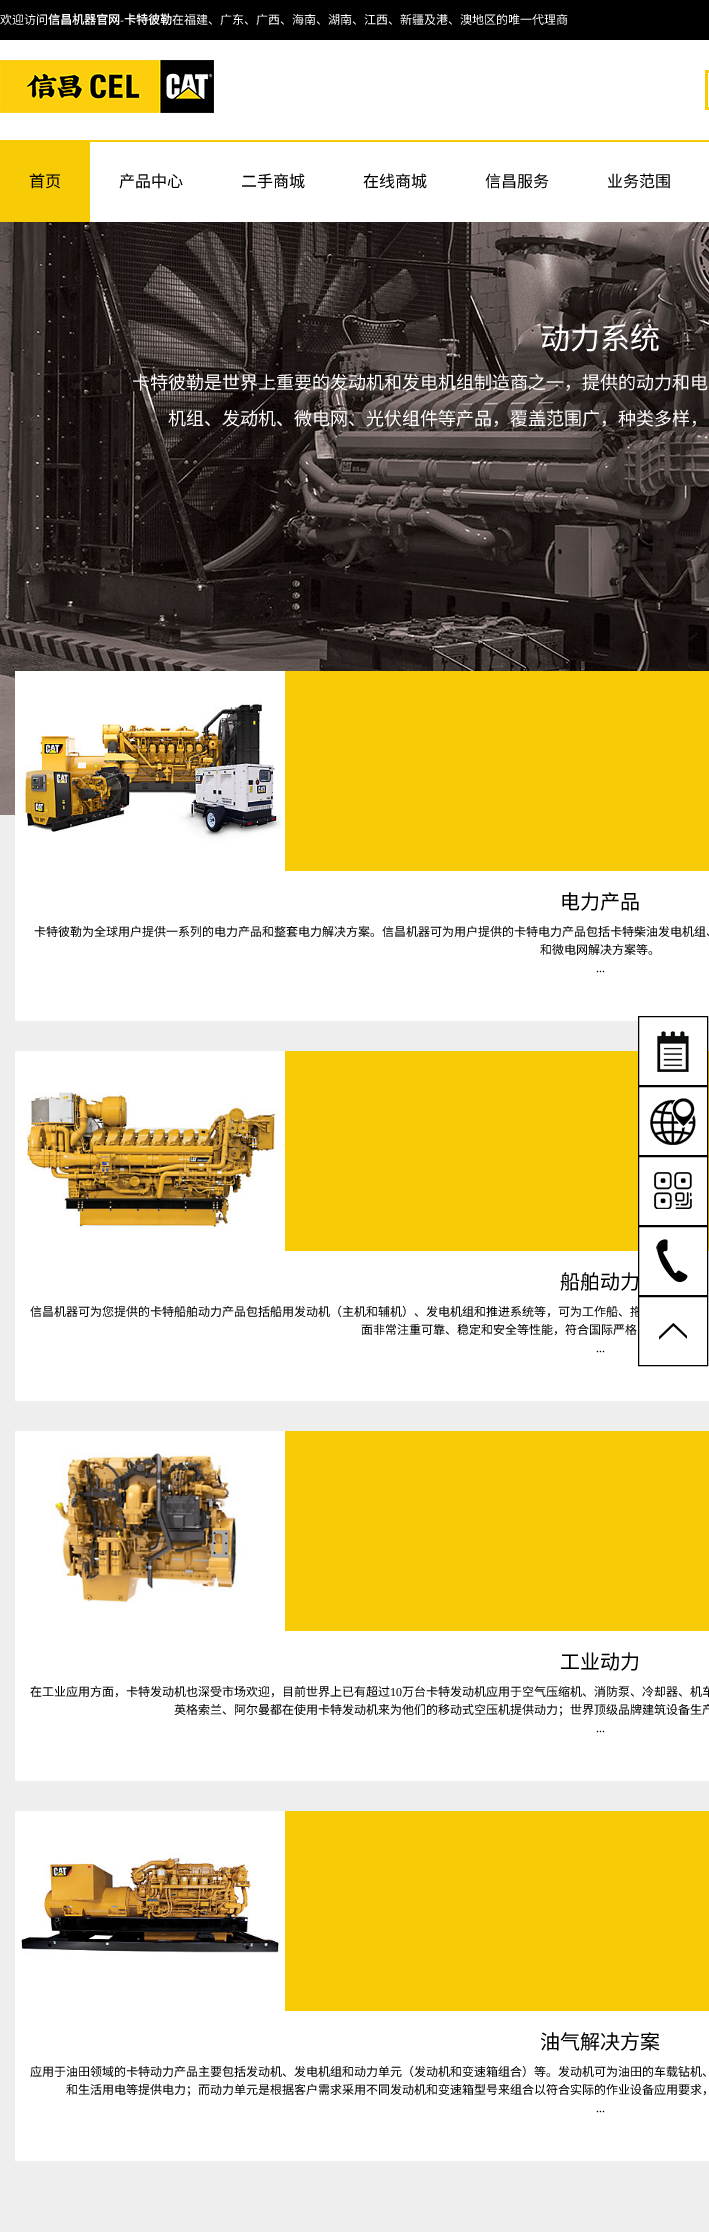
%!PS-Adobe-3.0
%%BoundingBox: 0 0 709 2232
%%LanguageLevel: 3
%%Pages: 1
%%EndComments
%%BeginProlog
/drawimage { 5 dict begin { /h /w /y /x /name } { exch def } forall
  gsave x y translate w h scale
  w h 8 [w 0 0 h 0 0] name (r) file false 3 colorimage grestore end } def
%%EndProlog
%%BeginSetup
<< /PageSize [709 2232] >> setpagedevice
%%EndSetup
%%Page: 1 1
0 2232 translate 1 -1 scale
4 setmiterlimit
1 setgray
0 0 709 2232 rectfill
0 setgray
0 0 709 40 rectfill
(images/1.raw) 0 60 214 53 drawimage
0.969 0.796 0.024 setrgbcolor
705 70 4 40 rectfill
1 setgray
708 73 1 34 rectfill
0.969 0.796 0.024 setrgbcolor
0 140 709 2 rectfill
0 142 90 80 rectfill
0.933 setgray
0 815 709 1417 rectfill
(images/2.raw) 0 222 709 593 drawimage
1 setgray
15 871 694 150 rectfill
0.969 0.796 0.024 setrgbcolor
285 671 424 200 rectfill
(images/3.raw) 15 671 270 200 drawimage
1 setgray
15 1251 694 150 rectfill
0.969 0.796 0.024 setrgbcolor
285 1051 424 200 rectfill
(images/4.raw) 15 1051 270 200 drawimage
1 setgray
15 1631 694 150 rectfill
0.969 0.796 0.024 setrgbcolor
285 1431 424 200 rectfill
(images/5.raw) 15 1431 270 200 drawimage
1 setgray
15 2011 694 150 rectfill
0.969 0.796 0.024 setrgbcolor
285 1811 424 200 rectfill
(images/6.raw) 15 1811 270 200 drawimage
1 setgray
639 1021 68 64 rectfill
(images/7.raw) 657 1031 32 41 drawimage
0 setgray
638.5 1016.5 69 69 rectstroke
1 setgray
639 1087 68 68 rectfill
(images/8.raw) 650 1098 46 47 drawimage
0 setgray
638.5 1086.5 69 69 rectstroke
1 setgray
639 1157 68 68 rectfill
(images/9.raw) 654 1172 38 37 drawimage
0 setgray
638.5 1156.5 69 69 rectstroke
1 setgray
639 1227 68 24 rectfill
(images/10.raw) 656 1239 32 44 drawimage
0 setgray
638.5 1226.5 69 69 rectstroke
(images/11.raw) 659 1323 28 17 drawimage
/NotoSansCJKSC-Regular [12 0 0 -12 0 0] selectfont
1 setgray
0 24 moveto (欢迎访问) show
/NotoSansCJKSC-Bold [12 0 0 -12 0 0] selectfont
48 24 moveto (信昌机器官网) show
/LiberationSerif-Regular [12 0 0 -12 0 0] selectfont
120 24 moveto (-) show
/NotoSansCJKSC-Bold [12 0 0 -12 0 0] selectfont
124 24 moveto (卡特彼勒) show
/NotoSansCJKSC-Regular [12 0 0 -12 0 0] selectfont
172 24 moveto (在福建、广东、广西、海南、湖南、江西、新疆及港、澳地区的唯一代理商) show
/NotoSansCJKSC-Regular [16 0 0 -16 0 0] selectfont
0 setgray
29 187 moveto (首页) show
119 187 moveto (产品中心) show
241 187 moveto (二手商城) show
363 187 moveto (在线商城) show
485 187 moveto (信昌服务) show
607 187 moveto (业务范围) show
/LiberationSerif-Regular [30 0 0 -30 0 0] selectfont
0.282 setgray
514 349 moveto (|) show
/NotoSansCJKSC-Regular [30 0 0 -30 0 0] selectfont
1 setgray
540 349 moveto (动力系统) show
/LiberationSerif-Regular [30 0 0 -30 0 0] selectfont
0.282 setgray
680 349 moveto (|) show
/NotoSansCJKSC-Regular [18 0 0 -18 0 0] selectfont
1 setgray
132 389 moveto (卡特彼勒是世界上重要的发动机和发电机组制造商之一，提供的动力和电) show
168 425 moveto (机组、发动机、微电网、光伏组件等产品，覆盖范围广，种类多样，) show
/NotoSansCJKSC-Regular [20 0 0 -20 0 0] selectfont
0 setgray
560 909 moveto (电力产品) show
/NotoSansCJKSC-Regular [12 0 0 -12 0 0] selectfont
34 936 moveto (卡特彼勒为全球用户提供一系列的电力产品和整套电力解决方案。信昌机器可为用户提供的卡特电力产品包括卡特柴油发电机组、) show
540 954 moveto (和微电网解决方案等。) show
/LiberationSerif-Regular [12 0 0 -12 0 0] selectfont
596 972 moveto (...) show
/NotoSansCJKSC-Regular [20 0 0 -20 0 0] selectfont
560 1289 moveto (船舶动力) show
/NotoSansCJKSC-Regular [12 0 0 -12 0 0] selectfont
30 1316 moveto (信昌机器可为您提供的卡特船舶动力产品包括船用发动机（主机和辅机）、发电机组和推进系统等，可为工作船、拖) show
361 1334 moveto (面非常注重可靠、稳定和安全等性能，符合国际严格) show
/LiberationSerif-Regular [12 0 0 -12 0 0] selectfont
596 1352 moveto (...) show
/NotoSansCJKSC-Regular [20 0 0 -20 0 0] selectfont
560 1669 moveto (工业动力) show
/NotoSansCJKSC-Regular [12 0 0 -12 0 0] selectfont
30 1696 moveto (在工业应用方面，卡特发动机也深受市场欢迎，目前世界上已有超过) show
/LiberationSerif-Regular [12 0 0 -12 0 0] selectfont
390 1696 moveto (10) show
/NotoSansCJKSC-Regular [12 0 0 -12 0 0] selectfont
402 1696 moveto (万台卡特发动机应用于空气压缩机、消防泵、冷却器、机车) show
174 1714 moveto (英格索兰、阿尔曼都在使用卡特发动机来为他们的移动式空压机提供动力；世界顶级品牌建筑设备生产) show
/LiberationSerif-Regular [12 0 0 -12 0 0] selectfont
596 1732 moveto (...) show
/NotoSansCJKSC-Regular [20 0 0 -20 0 0] selectfont
540 2049 moveto (油气解决方案) show
/NotoSansCJKSC-Regular [12 0 0 -12 0 0] selectfont
30 2076 moveto (应用于油田领域的卡特动力产品主要包括发动机、发电机组和动力单元（发动机和变速箱组合）等。发动机可为油田的车载钻机、) show
66 2094 moveto (和生活用电等提供电力；而动力单元是根据客户需求采用不同发动机和变速箱型号来组合以符合实际的作业设备应用要求，) show
/LiberationSerif-Regular [12 0 0 -12 0 0] selectfont
596 2112 moveto (...) show
1 setgray
639 1307 3 10 rectfill
0 setgray
638.5 1296.5 69 69 rectstroke
showpage
%%EOF
